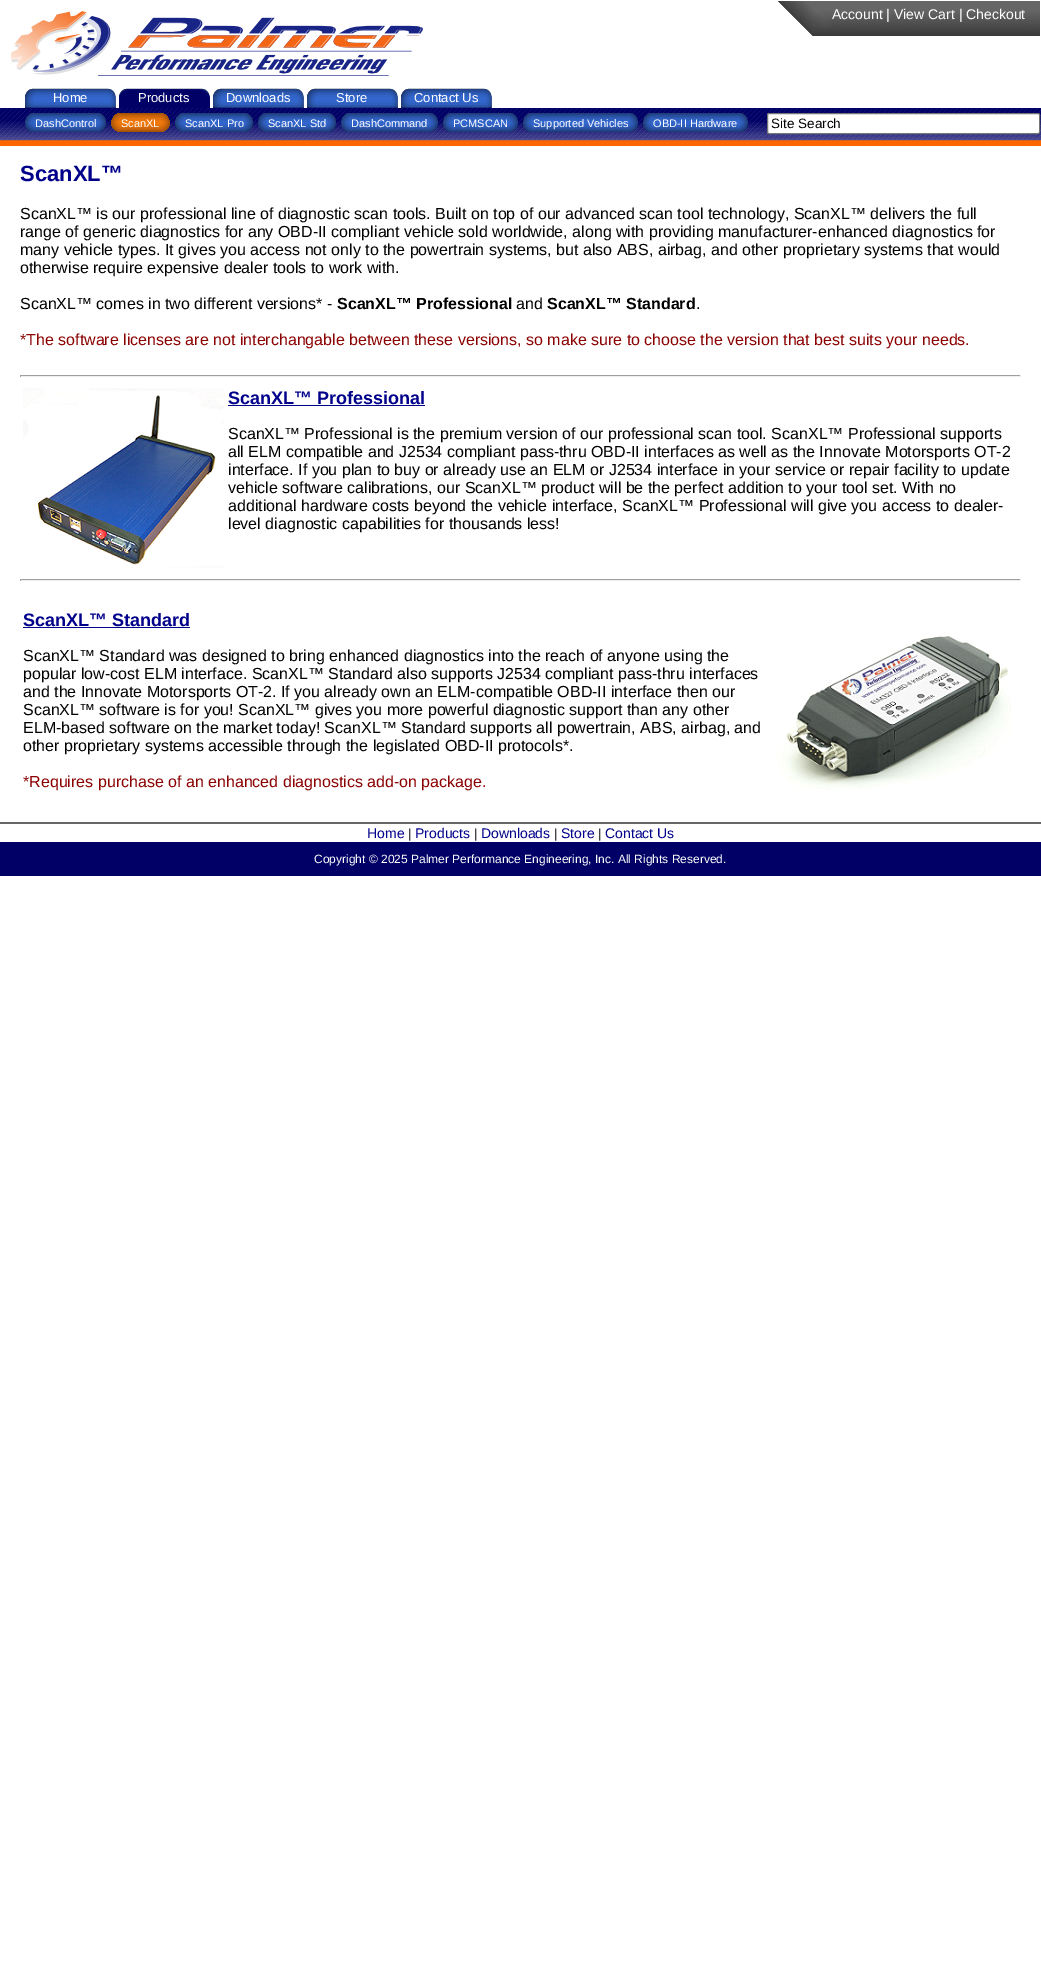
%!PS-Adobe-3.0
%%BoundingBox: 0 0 1041 1962
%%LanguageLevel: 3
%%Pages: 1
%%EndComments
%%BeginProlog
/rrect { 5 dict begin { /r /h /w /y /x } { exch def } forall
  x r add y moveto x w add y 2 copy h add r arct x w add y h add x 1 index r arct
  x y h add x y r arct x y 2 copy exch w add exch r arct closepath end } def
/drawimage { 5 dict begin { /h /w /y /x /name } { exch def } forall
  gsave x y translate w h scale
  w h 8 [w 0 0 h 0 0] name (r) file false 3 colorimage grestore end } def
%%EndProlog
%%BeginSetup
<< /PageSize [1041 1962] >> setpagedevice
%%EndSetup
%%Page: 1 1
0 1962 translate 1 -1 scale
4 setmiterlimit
1 setgray
0 0 1041 1962 rectfill
(images/1.raw) 11 11 412 65 drawimage
(images/2.raw) 777 1 263 35 drawimage
(images/3.raw) 25 88 91 20 drawimage
(images/4.raw) 119 88 91 20 drawimage
(images/3.raw) 213 88 91 20 drawimage
(images/3.raw) 307 88 91 20 drawimage
(images/3.raw) 401 88 91 20 drawimage
(images/5.raw) 0 108 1041 38 drawimage
(images/6.raw) 25 113 10 19 drawimage
(images/7.raw) 35 113 61 19 drawimage
(images/8.raw) 96 113 10 19 drawimage
(images/9.raw) 111 113 10 19 drawimage
(images/10.raw) 121 113 39 19 drawimage
(images/11.raw) 160 113 10 19 drawimage
(images/6.raw) 175 113 10 19 drawimage
(images/12.raw) 185 113 58 19 drawimage
(images/13.raw) 243 113 10 19 drawimage
(images/14.raw) 258 113 10 19 drawimage
(images/12.raw) 268 113 58 19 drawimage
(images/15.raw) 326 113 10 19 drawimage
(images/16.raw) 341 113 10 19 drawimage
(images/17.raw) 351 113 77 19 drawimage
(images/13.raw) 428 113 10 19 drawimage
(images/14.raw) 443 113 10 19 drawimage
(images/18.raw) 453 113 55 19 drawimage
(images/13.raw) 508 113 10 19 drawimage
(images/14.raw) 523 113 10 19 drawimage
(images/19.raw) 533 113 95 19 drawimage
(images/13.raw) 628 113 10 19 drawimage
(images/14.raw) 643 113 10 19 drawimage
(images/20.raw) 653 113 85 19 drawimage
(images/21.raw) 738 113 10 19 drawimage
767.5 113.5 272 20 1.5 rrect gsave fill grestore
0.463 setgray
stroke
0.624 setgray
20 375 1001 1 rectfill
0.933 setgray
1020 375 1 2 rectfill
20 376 1001 1 rectfill
0.624 setgray
20 375 1 2 rectfill
(images/22.raw) 23 388 201 180 drawimage
0 0 0.545 setrgbcolor
228 405 197 1 rectfill
0.624 setgray
20 579 1001 1 rectfill
0.933 setgray
1020 579 1 2 rectfill
20 580 1001 1 rectfill
0.624 setgray
20 579 1 2 rectfill
0 0 0.545 setrgbcolor
23 627 167 1 rectfill
(images/23.raw) 776 636 235 154 drawimage
0.4 setgray
0 822 1041 2 rectfill
0 0 0.4 setrgbcolor
0 842 1041 34 rectfill
/LiberationSans-Regular [14 0 0 -14 0 0] selectfont
1 setgray
832 19 moveto (Account | View Cart | Checkout) show
/LiberationSans-Regular [13 0 0 -13 0 0] selectfont
53 102 moveto (Home) show
138 102 moveto (Products) show
226 102 moveto (Downloads) show
336 102 moveto (Store) show
414 102 moveto (Contact Us) show
/LiberationSans-Regular [11 0 0 -11 0 0] selectfont
35 127 moveto (DashControl) show
121 127 moveto (ScanXL) show
185 127 moveto (ScanXL Pro) show
268 127 moveto (ScanXL Std) show
351 127 moveto (DashCommand) show
453 127 moveto (PCMSCAN) show
533 127 moveto (Supported Vehicles) show
653 127 moveto (OBD-II Hardware) show
/LiberationSans-Regular [13.5 0 0 -13.5 0 0] selectfont
0 setgray
771 128 moveto (Site Search) show
/LiberationSans-Bold [22 0 0 -22 0 0] selectfont
0 0 0.545 setrgbcolor
20 181 moveto (ScanXL™) show
/LiberationSans-Regular [16 0 0 -16 0 0] selectfont
0 setgray
20 219 moveto (ScanXL™ is our professional line of diagnostic scan tools. Built on top of our advanced scan tool technology, ScanXL™ delivers the full) show
20 237 moveto (range of generic diagnostics for any OBD-II compliant vehicle sold worldwide, along with providing manufacturer-enhanced diagnostics for) show
20 255 moveto (many vehicle types. It gives you access not only to the powertrain systems, but also ABS, airbag, and other proprietary systems that would) show
20 273 moveto (otherwise require expensive dealer tools to work with.) show
20 309 moveto (ScanXL™ comes in two different versions* -) show
/LiberationSans-Bold [16 0 0 -16 0 0] selectfont
337 309 moveto (ScanXL™ Professional) show
/LiberationSans-Regular [16 0 0 -16 0 0] selectfont
516 309 moveto (and) show
/LiberationSans-Bold [16 0 0 -16 0 0] selectfont
547 309 moveto (ScanXL™ Standard) show
/LiberationSans-Regular [16 0 0 -16 0 0] selectfont
696 309 moveto (.) show
0.545 0 0 setrgbcolor
20 345 moveto (*The software licenses are not interchangable between these versions, so make sure to choose the version that best suits your needs.) show
/LiberationSans-Bold [18 0 0 -18 0 0] selectfont
0 0 0.545 setrgbcolor
228 404 moveto (ScanXL™ Professional) show
/LiberationSans-Regular [16 0 0 -16 0 0] selectfont
0 setgray
228 439 moveto (ScanXL™ Professional is the premium version of our professional scan tool. ScanXL™ Professional supports) show
228 457 moveto (all ELM compatible and J2534 compliant pass-thru OBD-II interfaces as well as the Innovate Motorsports OT-2) show
228 475 moveto (interface. If you plan to buy or already use an ELM or J2534 interface in your service or repair facility to update) show
228 493 moveto (vehicle software calibrations, our ScanXL™ product will be the perfect addition to your tool set. With no) show
228 511 moveto (additional hardware costs beyond the vehicle interface, ScanXL™ Professional will give you access to dealer-) show
228 529 moveto (level diagnostic capabilities for thousands less!) show
/LiberationSans-Bold [18 0 0 -18 0 0] selectfont
0 0 0.545 setrgbcolor
23 626 moveto (ScanXL™ Standard) show
/LiberationSans-Regular [16 0 0 -16 0 0] selectfont
0 setgray
23 661 moveto (ScanXL™ Standard was designed to bring enhanced diagnostics into the reach of anyone using the) show
23 679 moveto (popular low-cost ELM interface. ScanXL™ Standard also supports J2534 compliant pass-thru interfaces) show
23 697 moveto (and the Innovate Motorsports OT-2. If you already own an ELM-compatible OBD-II interface then our) show
23 715 moveto (ScanXL™ software is for you! ScanXL™ gives you more powerful diagnostic support than any other) show
23 733 moveto (ELM-based software on the market today! ScanXL™ Standard supports all powertrain, ABS, airbag, and) show
23 751 moveto (other proprietary systems accessible through the legislated OBD-II protocols*.) show
0.545 0 0 setrgbcolor
23 787 moveto (*Requires purchase of an enhanced diagnostics add-on package.) show
/LiberationSans-Regular [14 0 0 -14 0 0] selectfont
0 0 0.545 setrgbcolor
367 838 moveto (Home) show
/LiberationSans-Regular [13 0 0 -13 0 0] selectfont
0 setgray
408 838 moveto (|) show
/LiberationSans-Regular [14 0 0 -14 0 0] selectfont
0 0 0.545 setrgbcolor
415 838 moveto (Products) show
/LiberationSans-Regular [13 0 0 -13 0 0] selectfont
0 setgray
474 838 moveto (|) show
/LiberationSans-Regular [14 0 0 -14 0 0] selectfont
0 0 0.545 setrgbcolor
481 838 moveto (Downloads) show
/LiberationSans-Regular [13 0 0 -13 0 0] selectfont
0 setgray
554 838 moveto (|) show
/LiberationSans-Regular [14 0 0 -14 0 0] selectfont
0 0 0.545 setrgbcolor
561 838 moveto (Store) show
/LiberationSans-Regular [13 0 0 -13 0 0] selectfont
0 setgray
598 838 moveto (|) show
/LiberationSans-Regular [14 0 0 -14 0 0] selectfont
0 0 0.545 setrgbcolor
605 838 moveto (Contact Us) show
/LiberationSans-Regular [12 0 0 -12 0 0] selectfont
1 setgray
314 863 moveto (Copyright © 2025 Palmer Performance Engineering, Inc. All Rights Reserved.) show
showpage
%%EOF
